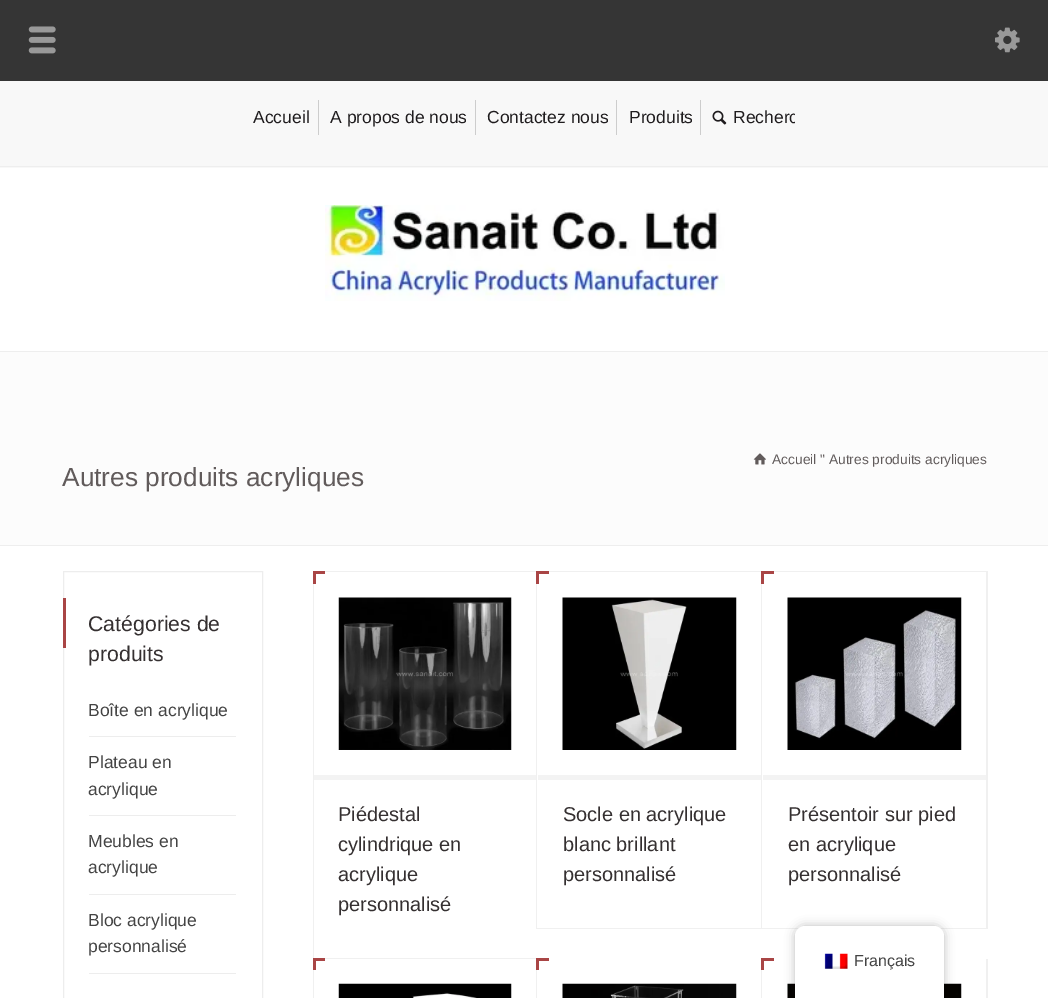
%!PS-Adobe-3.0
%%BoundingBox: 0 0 1048 998
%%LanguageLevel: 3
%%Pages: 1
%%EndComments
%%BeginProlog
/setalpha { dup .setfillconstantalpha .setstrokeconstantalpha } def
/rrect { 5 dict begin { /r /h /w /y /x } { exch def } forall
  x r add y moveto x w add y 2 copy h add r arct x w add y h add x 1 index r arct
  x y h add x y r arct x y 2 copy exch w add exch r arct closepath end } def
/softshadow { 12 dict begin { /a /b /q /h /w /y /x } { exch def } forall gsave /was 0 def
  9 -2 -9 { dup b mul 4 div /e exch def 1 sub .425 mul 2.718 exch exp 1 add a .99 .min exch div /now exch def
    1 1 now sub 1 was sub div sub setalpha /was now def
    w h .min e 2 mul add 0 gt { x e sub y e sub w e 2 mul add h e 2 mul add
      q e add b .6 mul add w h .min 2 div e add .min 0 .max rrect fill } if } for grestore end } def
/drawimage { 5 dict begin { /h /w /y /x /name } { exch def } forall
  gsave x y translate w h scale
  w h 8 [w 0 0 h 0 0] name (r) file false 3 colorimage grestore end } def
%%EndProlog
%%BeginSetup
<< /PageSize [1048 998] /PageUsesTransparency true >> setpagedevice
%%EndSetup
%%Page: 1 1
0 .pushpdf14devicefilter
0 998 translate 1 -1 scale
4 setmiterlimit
1 setgray
0 0 1048 998 rectfill
0.208 setgray
0 0 1048 81 rectfill
(images/1.raw) 28 26 28 28 drawimage
(images/2.raw) 995 27 25 26 drawimage
0.973 setgray
0 81 1048 87 rectfill
0.933 setgray
0 166 1048 1 rectfill
0.804 setgray
318 100 1 35 rectfill
475 100 1 35 rectfill
616 100 1 35 rectfill
700 100 1 35 rectfill
(images/3.raw) 712 110 15 15 drawimage
(images/4.raw) 325 205 400 96 drawimage
0.988 setgray
0 352 1048 193 rectfill
0.933 setgray
0 351 1048 1 rectfill
0 545 1048 1 rectfill
(images/5.raw) 753 453 13 12 drawimage
0.929 setgray
63.5 571.5 199 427 rectstroke
0.663 0.271 0.271 setrgbcolor
63 598 3 50 rectfill
0.929 setgray
89 736 147 1 rectfill
89 815 147 1 rectfill
89 894 147 1 rectfill
89 973 147 1 rectfill
0.941 setgray
325 571 211 1 rectfill
325 958 211 1 rectfill
313 584 1 375 rectfill
0.663 0.271 0.271 setrgbcolor
313 571 3 13 rectfill
313 571 12 3 rectfill
0.953 setgray
314 775 222 5 rectfill
(images/6.raw) 338 597 174 153 drawimage
0.941 setgray
549 571 212 1 rectfill
536 928 450 1 rectfill
536 584 1 345 rectfill
0.663 0.271 0.271 setrgbcolor
536 571 3 13 rectfill
536 571 13 3 rectfill
0.953 setgray
538 775 223 5 rectfill
(images/7.raw) 562 597 175 153 drawimage
0.941 setgray
newpath 763 571 moveto 986 571 lineto 986 929 lineto 763 929 lineto 988 929 lineto 988 571 lineto closepath fill
774 571 212 1 rectfill
761 584 1 345 rectfill
0.663 0.271 0.271 setrgbcolor
761 571 3 13 rectfill
761 571 13 3 rectfill
0.953 setgray
763 775 223 5 rectfill
(images/8.raw) 787 597 175 153 drawimage
0.941 setgray
313 970 1 28 rectfill
0.663 0.271 0.271 setrgbcolor
313 958 3 12 rectfill
313 958 12 3 rectfill
(images/9.raw) 338 983 174 15 drawimage
0.941 setgray
536 970 1 28 rectfill
0.663 0.271 0.271 setrgbcolor
536 958 3 12 rectfill
536 958 13 3 rectfill
(images/10.raw) 562 983 175 15 drawimage
0.941 setgray
newpath 763 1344 moveto 988 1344 lineto 988 959 lineto 986 959 lineto 986 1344 lineto closepath fill
761 970 1 28 rectfill
0.663 0.271 0.271 setrgbcolor
761 958 3 12 rectfill
761 958 13 3 rectfill
(images/11.raw) 787 983 175 15 drawimage
0 setgray
795 926 149 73 10 5 0.25 softshadow
1 setgray
newpath 805 926 moveto 934 926 lineto 939.5 926 944 930.5 944 936 curveto 944 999 lineto 795 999 lineto 795 936 lineto 795 930.5 799.5 926 805 926 curveto closepath fill
(images/12.raw) 824 953 24 16 drawimage
/LiberationSans-Regular [17.5 0 0 -17.5 0 0] selectfont
0.122 0.11 0.118 setrgbcolor
253 123 moveto (Accueil) show
330 123 moveto (A propos de nous) show
487 123 moveto (Contactez nous) show
629 123 moveto (Produits) show
gsave
733 108 62 20 rectclip
733 123 moveto (Recherc) show
grestore
/LiberationSans-Regular [13.75 0 0 -13.75 0 0] selectfont
0.38 0.357 0.357 setrgbcolor
772 464 moveto (Accueil " Autres produits acryliques) show
/LiberationSans-Regular [26.25 0 0 -26.25 0 0] selectfont
62 486 moveto (Autres produits acryliques) show
/LiberationSans-Regular [21.25 0 0 -21.25 0 0] selectfont
0.208 0.188 0.192 setrgbcolor
88 631 moveto (Catégories de) show
88 661 moveto (produits) show
/LiberationSans-Regular [17.5 0 0 -17.5 0 0] selectfont
0.267 setgray
88 716 moveto (Boîte en acrylique) show
88 768 moveto (Plateau en) show
88 795 moveto (acrylique) show
88 847 moveto (Meubles en) show
88 873 moveto (acrylique) show
88 926 moveto (Bloc acrylique) show
88 952 moveto (personnalisé) show
/LiberationSans-Regular [20 0 0 -20 0 0] selectfont
0.208 0.188 0.192 setrgbcolor
338 821 moveto (Piédestal) show
338 851 moveto (cylindrique en) show
338 881 moveto (acrylique) show
338 911 moveto (personnalisé) show
563 821 moveto (Socle en acrylique) show
563 851 moveto (blanc brillant) show
563 881 moveto (personnalisé) show
788 821 moveto (Présentoir sur pied) show
788 851 moveto (en acrylique) show
788 881 moveto (personnalisé) show
/LiberationSans-Regular [16 0 0 -16 0 0] selectfont
0.267 setgray
854 966 moveto (Français) show
.poppdf14devicefilter showpage
%%EOF
